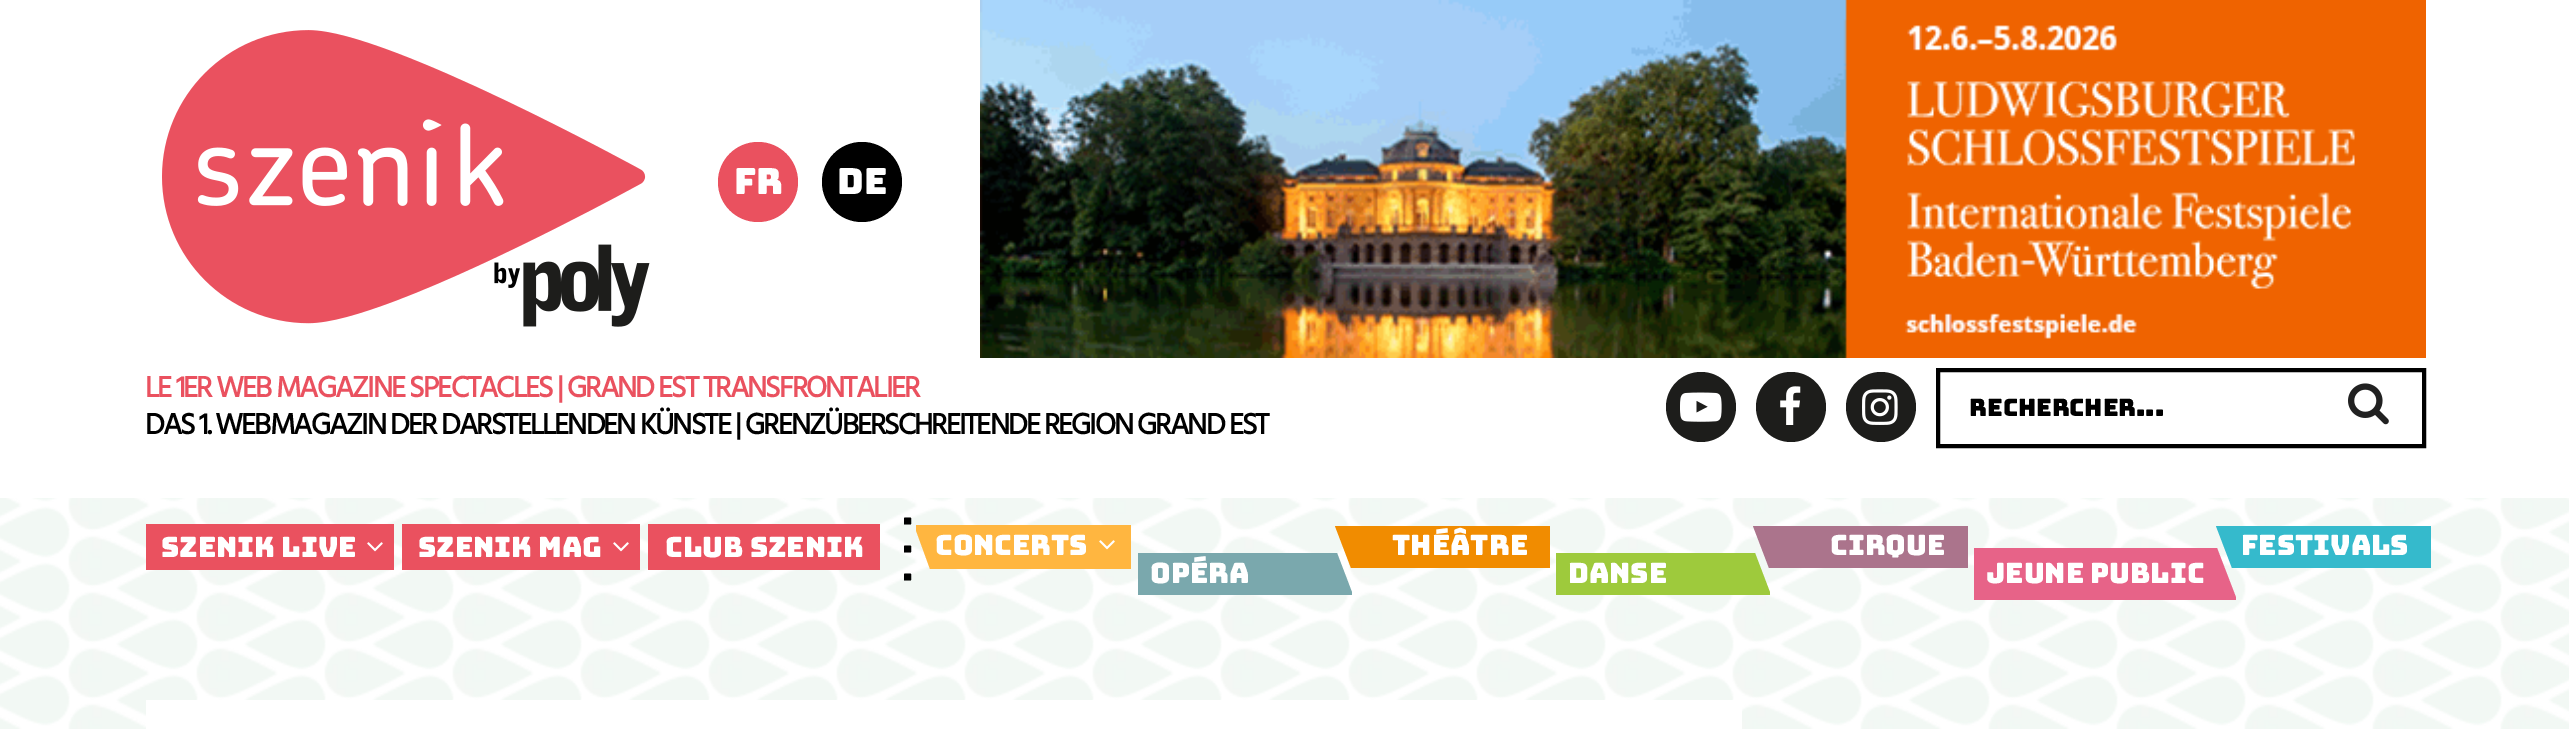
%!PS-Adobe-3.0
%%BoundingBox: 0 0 2569 729
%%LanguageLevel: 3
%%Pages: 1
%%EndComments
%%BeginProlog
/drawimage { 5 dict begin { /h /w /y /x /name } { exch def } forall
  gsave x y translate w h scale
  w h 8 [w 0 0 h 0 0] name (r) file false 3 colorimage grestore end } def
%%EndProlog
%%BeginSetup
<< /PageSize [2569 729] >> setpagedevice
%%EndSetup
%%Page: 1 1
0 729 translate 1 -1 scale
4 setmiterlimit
1 setgray
0 0 2569 729 rectfill
(images/1.raw) 0 498 2569 231 drawimage
(images/2.raw) 162 30 488 297 drawimage
0.918 0.318 0.373 setrgbcolor
newpath 758 182 40 0 360 arc closepath fill
0 setgray
newpath 862 182 40 0 360 arc closepath fill
(images/3.raw) 980 0 1446 358 drawimage
0.114 0.114 0.106 setrgbcolor
newpath 1701 407 35 0 360 arc closepath fill
(images/4.raw) 1680 392 42 30 drawimage
newpath 1791 407 35 0 360 arc closepath fill
(images/5.raw) 1780 386 21 39 drawimage
newpath 1881 407 35 0 360 arc closepath fill
(images/6.raw) 1862 389 36 36 drawimage
0 setgray
4 setlinewidth
1938 370 486 76 rectstroke
(images/7.raw) 2348 383 41 42 drawimage
0.918 0.318 0.373 setrgbcolor
146 524 248 46 rectfill
(images/8.raw) 367 542 16 10 drawimage
402 524 238 46 rectfill
(images/8.raw) 613 542 16 10 drawimage
648 524 232 46 rectfill
gsave
916 518 216 56 rectclip
1 0.714 0.251 setrgbcolor
newpath 914 525 moveto 1131 525 lineto 1131 569 lineto 930 569 lineto closepath fill
grestore
(images/9.raw) 1099 540 16 10 drawimage
gsave
1138 546 214 56 rectclip
0.478 0.659 0.678 setrgbcolor
newpath 1353 595 moveto 1138 595 lineto 1138 553 lineto 1337 553 lineto closepath fill
grestore
gsave
1334 518 216 56 rectclip
0.945 0.549 0 setrgbcolor
newpath 1335 526 moveto 1551 526 lineto 1551 568 lineto 1351 568 lineto closepath fill
grestore
gsave
1556 546 214 56 rectclip
0.62 0.792 0.235 setrgbcolor
newpath 1771 595 moveto 1556 595 lineto 1556 553 lineto 1755 553 lineto closepath fill
grestore
0.671 0.455 0.549 setrgbcolor
newpath 1753 526 moveto 1968 526 lineto 1968 568 lineto 1769 568 lineto closepath fill
gsave
1974 546 262 56 rectclip
0.906 0.388 0.533 setrgbcolor
newpath 2237 600 moveto 1974 600 lineto 1974 548 lineto 2217 548 lineto closepath fill
grestore
0.208 0.729 0.8 setrgbcolor
newpath 2216 526 moveto 2431 526 lineto 2431 568 lineto 2232 568 lineto closepath fill
1 setgray
146 700 1596 29 rectfill
/Bungee-Regular [36 0 0 -36 0 0] selectfont
734 194 moveto (FR) show
837 194 moveto (DE) show
/Hind-Bold [30 0 0 -30 0 0] selectfont
0.918 0.318 0.373 setrgbcolor
145 397 moveto -2 0 (LE 1ER WEB MAGAZINE SPECTACLES | GRAND EST TRANSFRONTALIER) ashow
0 setgray
145 434 moveto -2 0 (DAS 1. WEBMAGAZIN DER DARSTELLENDEN KÜNSTE | GRENZÜBERSCHREITENDE REGION GRAND EST) ashow
/Bungee-Regular [24 0 0 -24 0 0] selectfont
1969 416 moveto (RECHERCHER...) show
/Bungee-Regular [28 0 0 -28 0 0] selectfont
1 setgray
161 557 moveto (SZENIK LIVE) show
418 557 moveto (SZENIK MAG) show
665 557 moveto (CLUB SZENIK) show
/Bungee-Regular [26 0 0 -26 0 0] selectfont
0 setgray
gsave 904 516 translate 90 rotate 0 0 moveto 6 0 (. . .) ashow grestore
/Bungee-Regular [28 0 0 -28 0 0] selectfont
1 setgray
935 555 moveto (CONCERTS) show
1392 555 moveto (THÉÂTRE) show
1830 555 moveto (CIRQUE) show
2241 555 moveto (FESTIVALS) show
1150 583 moveto (OPÉRA) show
1568 583 moveto (DANSE) show
1986 583 moveto (JEUNE PUBLIC) show
showpage
%%EOF
